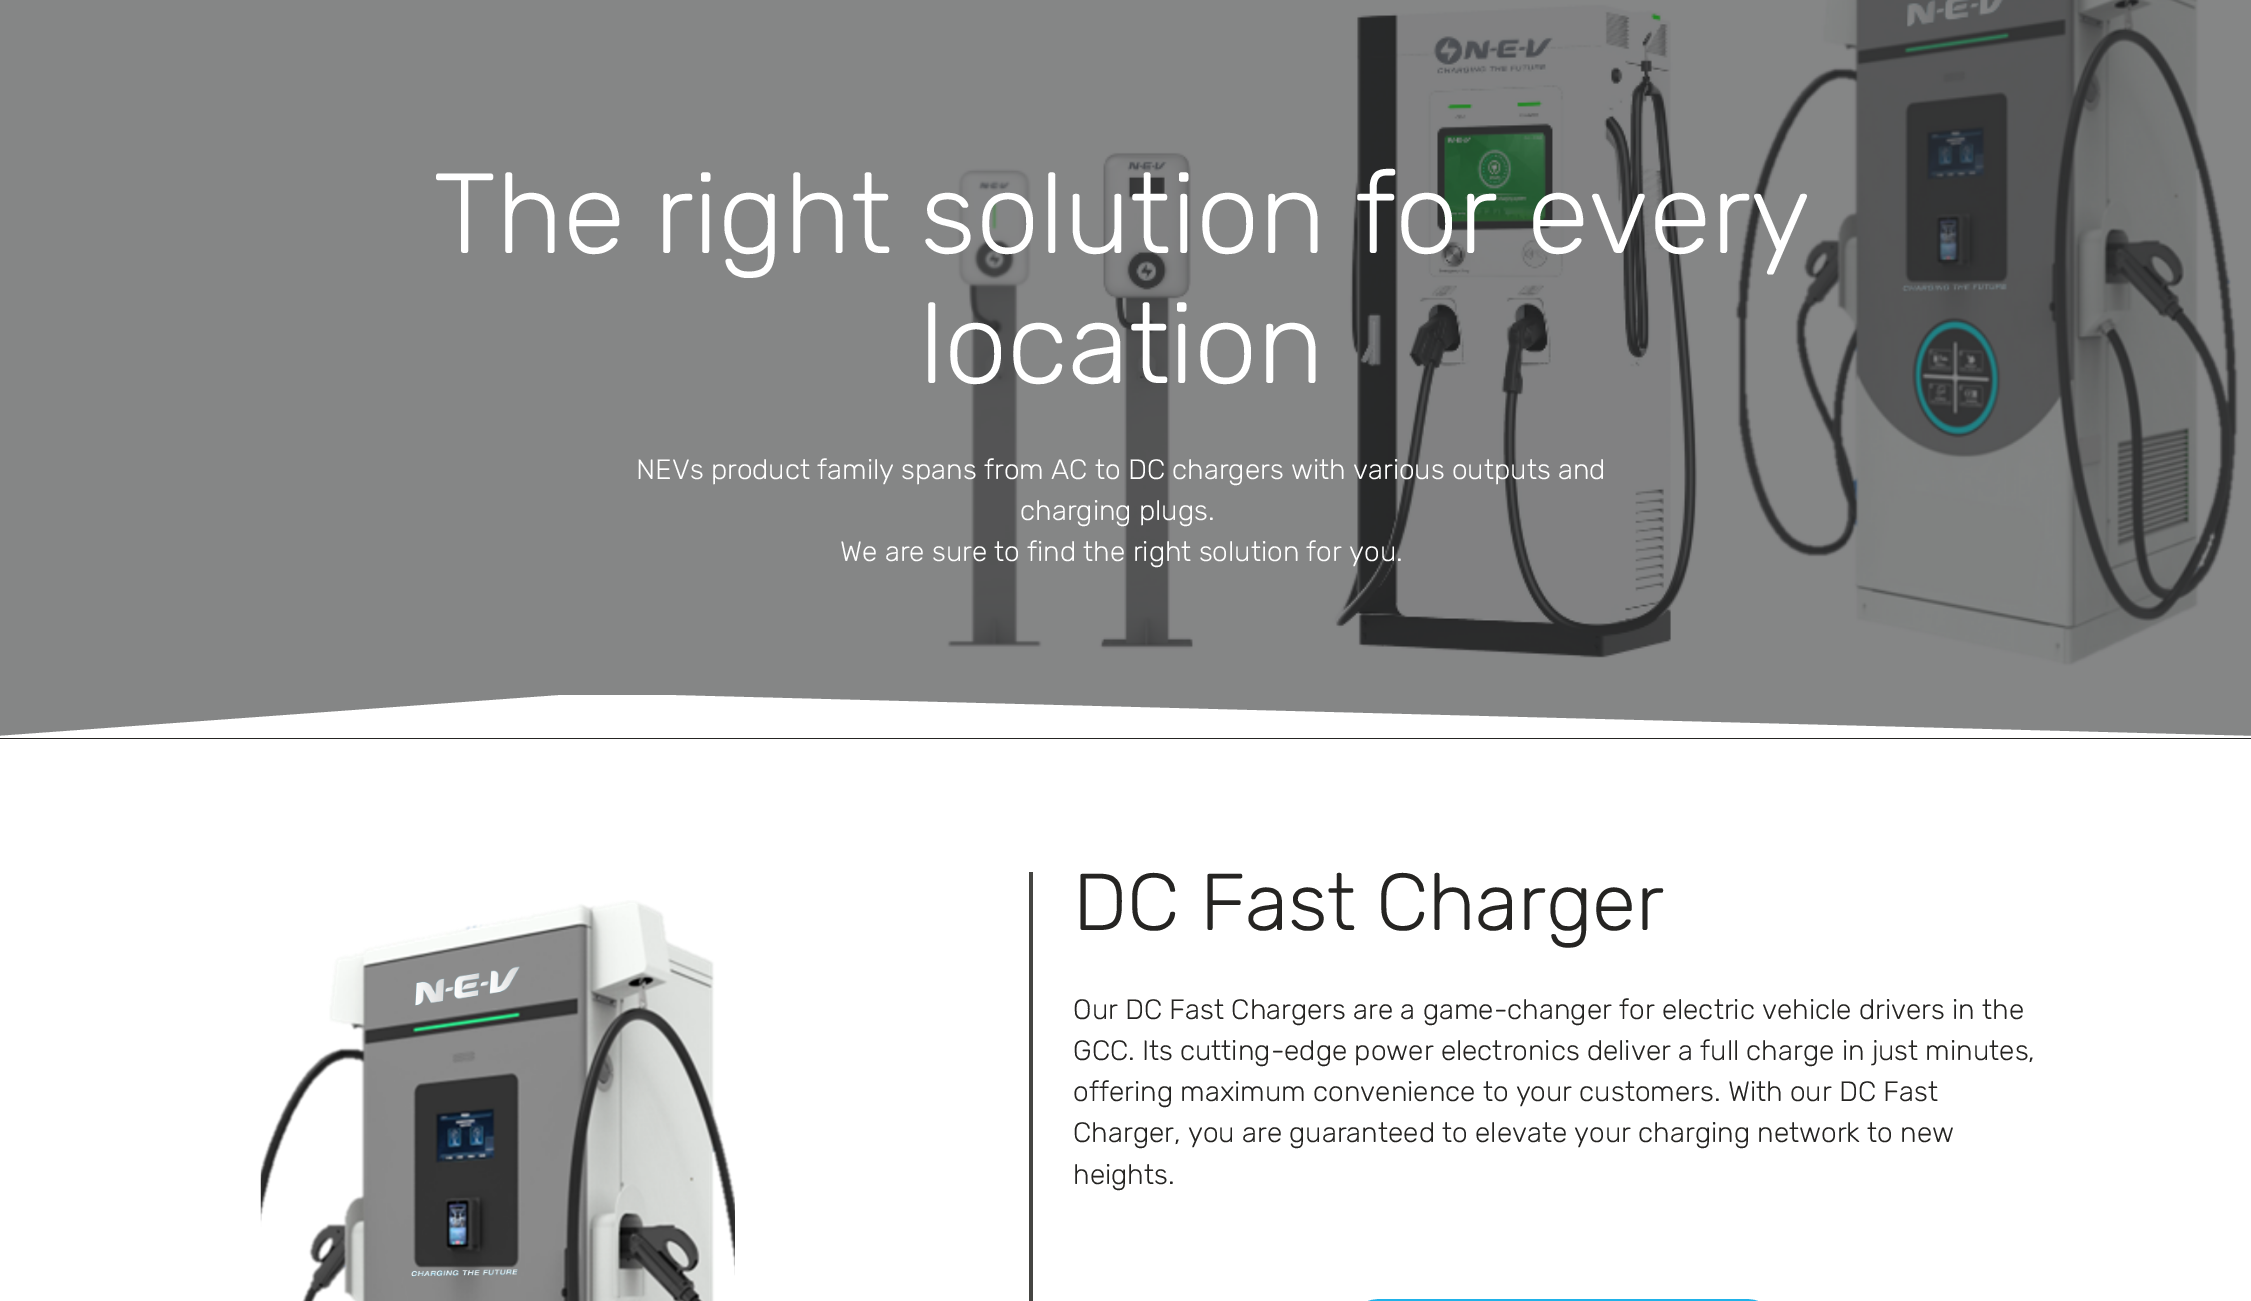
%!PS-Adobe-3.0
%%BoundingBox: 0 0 2251 1301
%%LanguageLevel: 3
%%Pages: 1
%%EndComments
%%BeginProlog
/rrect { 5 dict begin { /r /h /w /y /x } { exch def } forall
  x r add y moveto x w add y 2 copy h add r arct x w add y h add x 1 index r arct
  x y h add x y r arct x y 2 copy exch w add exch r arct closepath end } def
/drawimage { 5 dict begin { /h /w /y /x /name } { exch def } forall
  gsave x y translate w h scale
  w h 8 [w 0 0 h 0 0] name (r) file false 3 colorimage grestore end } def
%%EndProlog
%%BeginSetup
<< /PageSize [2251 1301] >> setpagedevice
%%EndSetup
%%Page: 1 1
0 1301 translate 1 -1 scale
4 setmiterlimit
0.145 0.141 0.133 setrgbcolor
0 0 2251 1301 rectfill
(images/1.raw) 0 0 2251 736 drawimage
gsave
0 695 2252 45 rectclip
1 setgray
newpath 589 693 moveto -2 736 lineto -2 738 lineto 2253 738 lineto 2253 736 lineto closepath fill
grestore
1 setgray
0 739 2251 562 rectfill
(images/2.raw) 260 900 475 401 drawimage
0.271 0.271 0.259 setrgbcolor
1029 872 4 429 rectfill
0.125 0.698 0.914 setrgbcolor
2 setlinewidth
1335 1300 456 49 46 rrect stroke
/Rubik-Light [113.75 0 0 -113.75 0 0] selectfont
1 setgray
433 253 moveto -0.35 0 (The right solution for every) ashow
919 383 moveto -0.35 0 (location) ashow
/Rubik-Light [28 0 0 -28 0 0] selectfont
636 479 moveto (NEVs product family spans from AC to DC chargers with various outputs and) show
1020 520 moveto (charging plugs.) show
840 561 moveto (We are sure to find the right solution for you.) show
/Rubik-Light [80.5 0 0 -80.5 0 0] selectfont
0.145 0.141 0.133 setrgbcolor
1073 930 moveto -0.35 0 (DC Fast Charger) ashow
/Rubik-Light [28 0 0 -28 0 0] selectfont
1073 1019 moveto (Our DC Fast Chargers are a game-changer for electric vehicle drivers in the) show
1073 1060 moveto (GCC. Its cutting-edge power electronics deliver a full charge in just minutes,) show
1073 1101 moveto (offering maximum convenience to your customers. With our DC Fast) show
1073 1142 moveto (Charger, you are guaranteed to elevate your charging network to new) show
1073 1184 moveto (heights.) show
showpage
%%EOF
